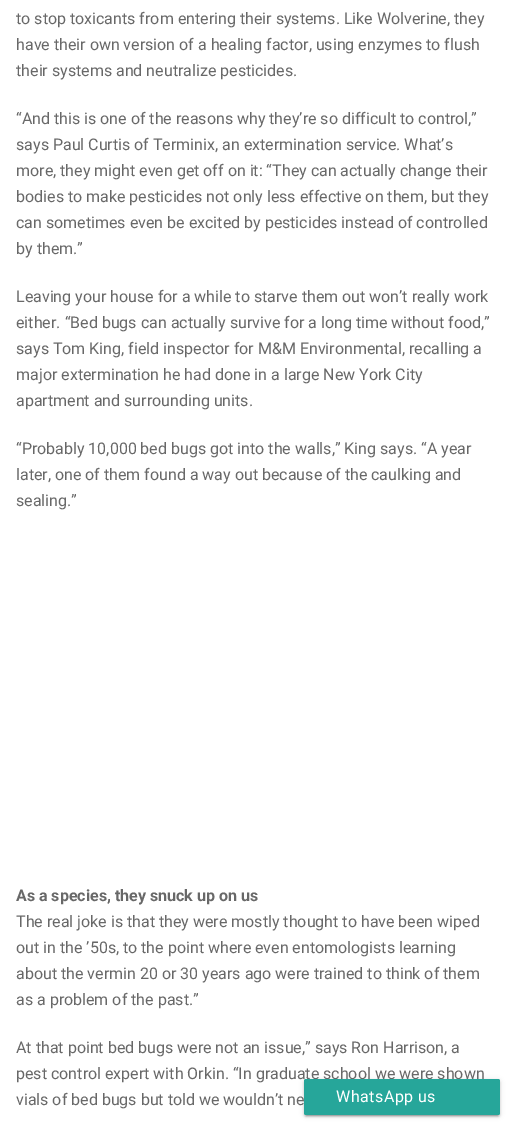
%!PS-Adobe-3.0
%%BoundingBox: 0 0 510 1125
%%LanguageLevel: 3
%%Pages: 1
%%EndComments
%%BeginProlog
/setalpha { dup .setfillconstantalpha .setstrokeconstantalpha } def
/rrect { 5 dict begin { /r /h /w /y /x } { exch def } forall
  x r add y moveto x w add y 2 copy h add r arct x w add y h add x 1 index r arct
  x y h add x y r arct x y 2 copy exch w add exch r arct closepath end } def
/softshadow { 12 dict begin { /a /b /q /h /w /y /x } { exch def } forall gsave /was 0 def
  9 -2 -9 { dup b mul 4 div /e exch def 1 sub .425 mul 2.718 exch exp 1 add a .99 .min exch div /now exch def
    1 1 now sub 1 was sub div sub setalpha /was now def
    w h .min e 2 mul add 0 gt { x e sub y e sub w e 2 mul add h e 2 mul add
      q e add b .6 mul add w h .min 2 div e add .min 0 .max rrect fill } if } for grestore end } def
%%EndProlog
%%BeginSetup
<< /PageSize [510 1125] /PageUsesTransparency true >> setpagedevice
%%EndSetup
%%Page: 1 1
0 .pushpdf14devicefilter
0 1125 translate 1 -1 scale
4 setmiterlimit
1 setgray
0 0 510 1125 rectfill
0 setgray
306 1084 192 32 0 0.5 0.2 softshadow
304 1080 196 36 2 2.5 0.12 softshadow
304 1081 196 36 2 1 0.14 softshadow
/Roboto-Regular [16 0 0 -16 0 0] selectfont
0.408 setgray
16 24 moveto (to stop toxicants from entering their systems. Like Wolverine, they) show
16 50 moveto (have their own version of a healing factor, using enzymes to flush) show
16 76 moveto (their systems and neutralize pesticides.) show
16 124 moveto (“And this is one of the reasons why they’re so difficult to control,”) show
16 150 moveto (says Paul Curtis of Terminix, an extermination service. What’s) show
16 176 moveto (more, they might even get off on it: “They can actually change their) show
16 202 moveto (bodies to make pesticides not only less effective on them, but they) show
16 228 moveto (can sometimes even be excited by pesticides instead of controlled) show
16 254 moveto (by them.”) show
16 302 moveto (Leaving your house for a while to starve them out won’t really work) show
16 328 moveto (either. “Bed bugs can actually survive for a long time without food,”) show
16 354 moveto (says Tom King, field inspector for M&M Environmental, recalling a) show
16 380 moveto (major extermination he had done in a large New York City) show
16 406 moveto (apartment and surrounding units.) show
16 454 moveto (“Probably 10,000 bed bugs got into the walls,” King says. “A year) show
16 480 moveto (later, one of them found a way out because of the caulking and) show
16 506 moveto (sealing.”) show
/Roboto-Bold [16 0 0 -16 0 0] selectfont
16 901 moveto (As a species, they snuck up on us) show
/Roboto-Regular [16 0 0 -16 0 0] selectfont
16 927 moveto (The real joke is that they were mostly thought to have been wiped) show
16 953 moveto (out in the ’50s, to the point where even entomologists learning) show
16 979 moveto (about the vermin 20 or 30 years ago were trained to think of them) show
16 1005 moveto (as a problem of the past.”) show
16 1053 moveto (At that point bed bugs were not an issue,” says Ron Harrison, a) show
16 1079 moveto (pest control expert with Orkin. “In graduate school we were shown) show
16 1105 moveto (vials of bed bugs but told we wouldn’t ne) show
0.149 0.651 0.604 setrgbcolor
304 1079 196 36 2 rrect fill
1 setgray
336 1102 moveto 0.5 0 (WhatsApp us) ashow
.poppdf14devicefilter showpage
%%EOF
